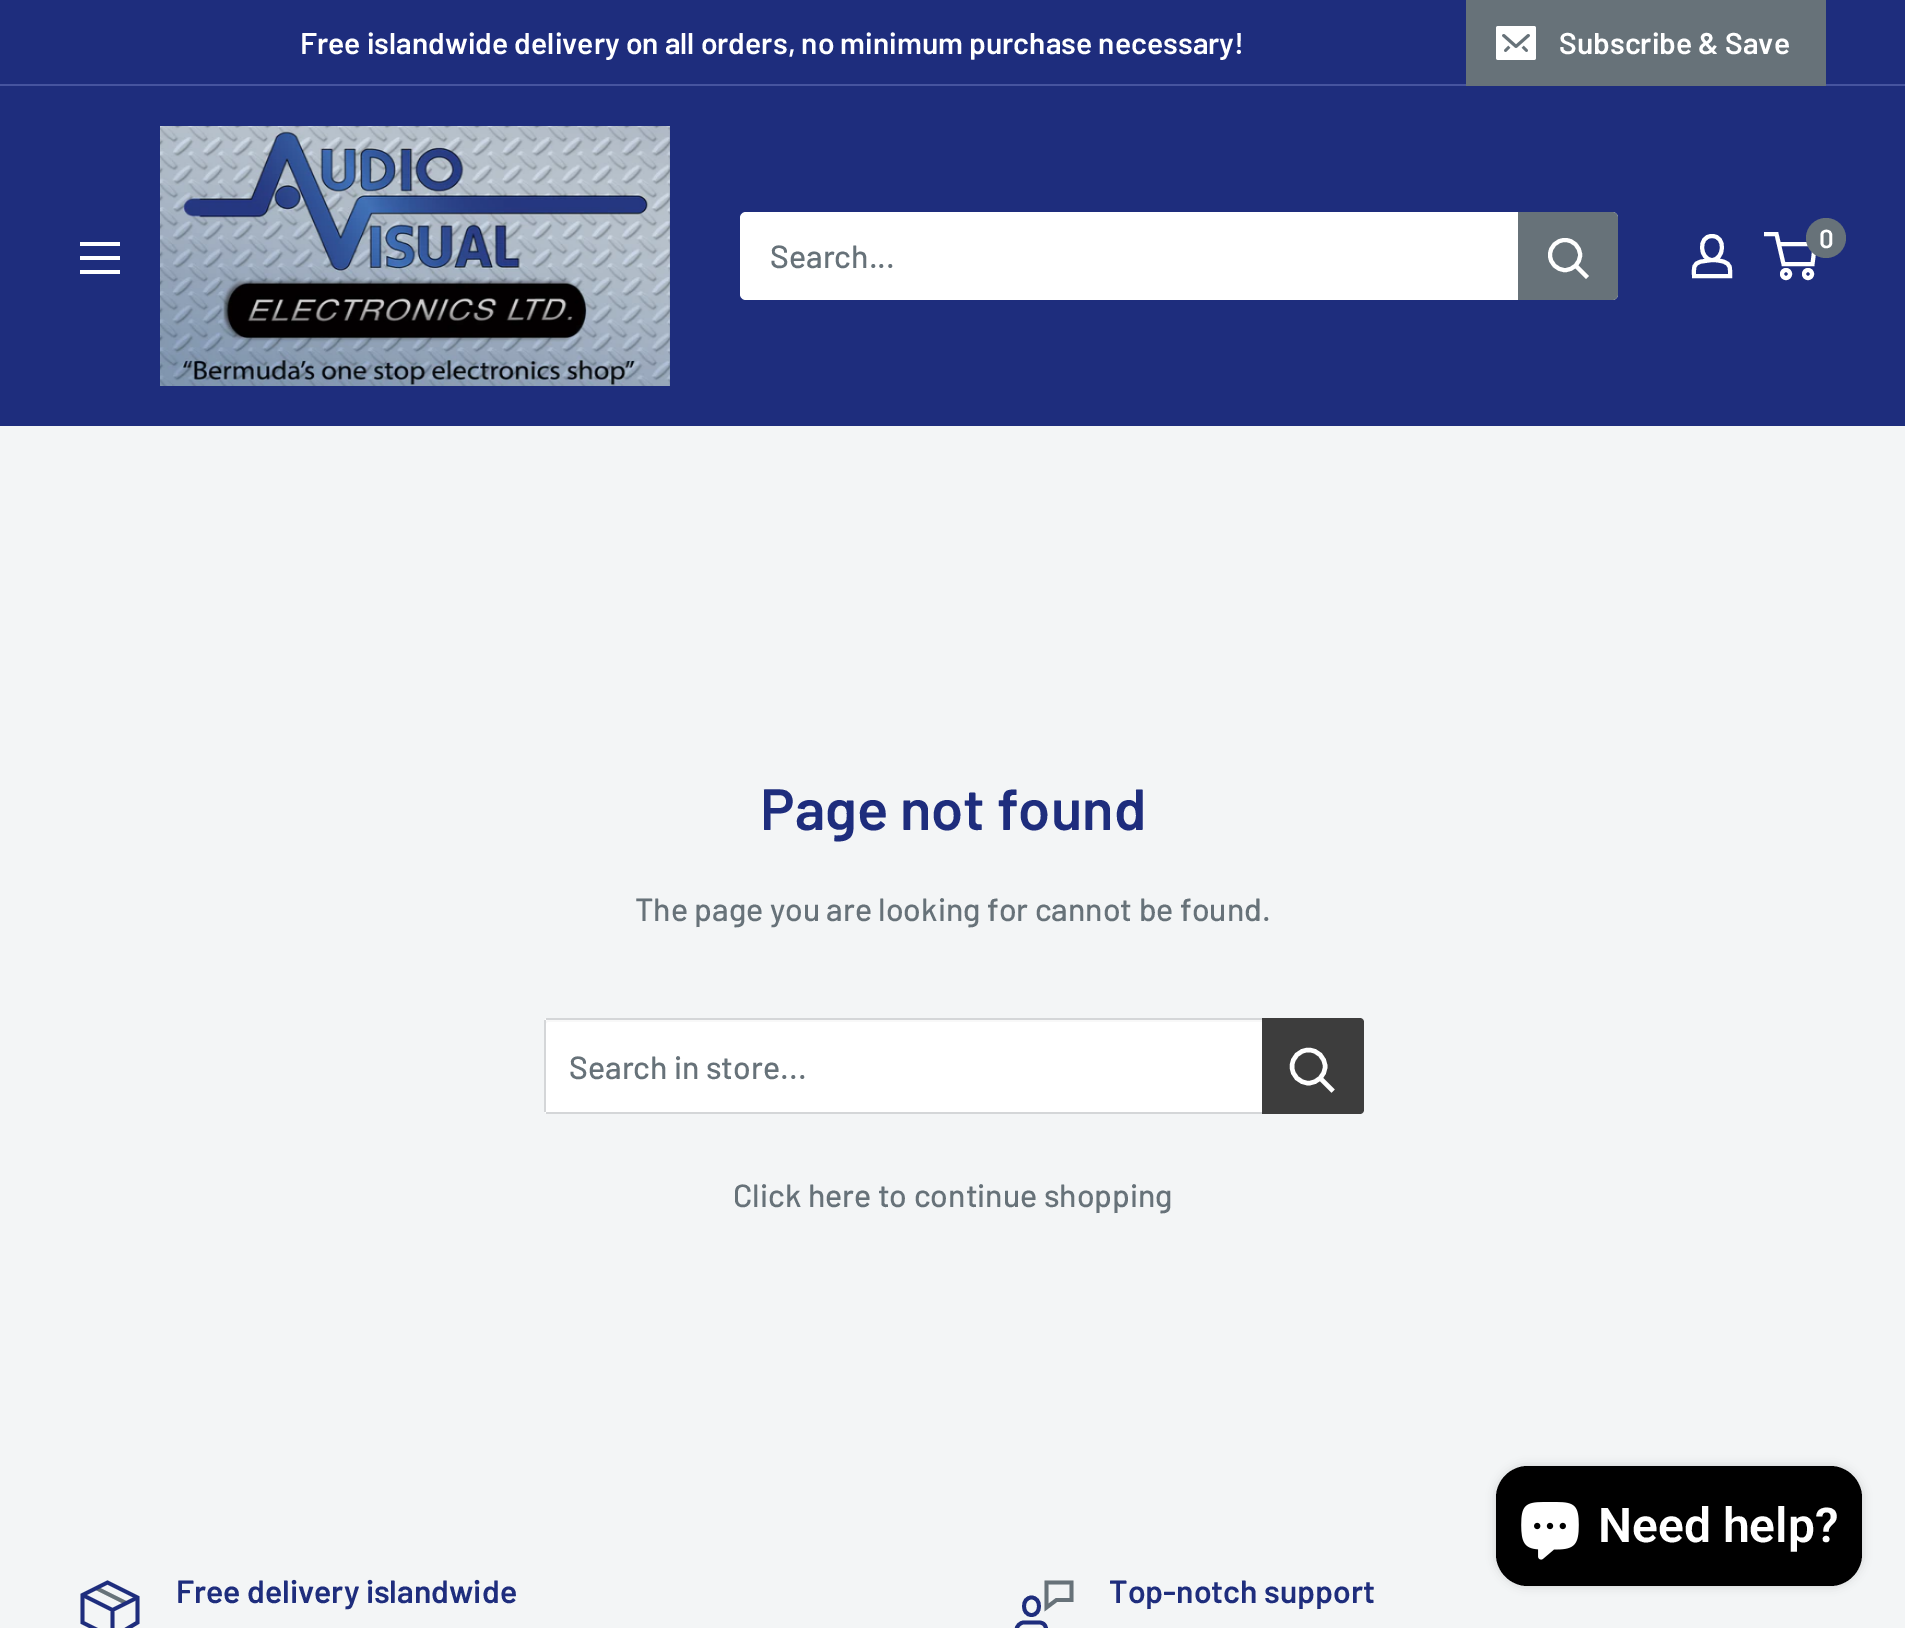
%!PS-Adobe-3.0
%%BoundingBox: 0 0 1905 1628
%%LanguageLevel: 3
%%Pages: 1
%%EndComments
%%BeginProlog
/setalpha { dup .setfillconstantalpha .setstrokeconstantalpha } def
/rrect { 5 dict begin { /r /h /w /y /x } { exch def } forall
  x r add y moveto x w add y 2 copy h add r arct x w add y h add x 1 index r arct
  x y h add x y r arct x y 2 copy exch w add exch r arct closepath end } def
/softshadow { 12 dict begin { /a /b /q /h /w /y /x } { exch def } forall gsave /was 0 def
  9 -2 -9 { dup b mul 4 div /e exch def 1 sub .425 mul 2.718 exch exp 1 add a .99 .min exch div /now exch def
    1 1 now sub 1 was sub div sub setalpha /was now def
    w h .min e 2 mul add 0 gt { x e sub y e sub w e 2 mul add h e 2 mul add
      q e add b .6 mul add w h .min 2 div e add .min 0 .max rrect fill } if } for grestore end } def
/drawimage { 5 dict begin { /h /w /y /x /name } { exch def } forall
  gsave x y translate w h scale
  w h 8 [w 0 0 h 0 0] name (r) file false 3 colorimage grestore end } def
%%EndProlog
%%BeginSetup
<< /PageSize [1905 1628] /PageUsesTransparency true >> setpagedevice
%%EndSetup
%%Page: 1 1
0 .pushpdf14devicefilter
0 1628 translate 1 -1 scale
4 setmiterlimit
0.953 0.961 0.965 setrgbcolor
0 0 1905 1628 rectfill
0.118 0.176 0.49 setrgbcolor
0 0 1905 84 rectfill
0.275 0.329 0.624 setrgbcolor
0 84 1905 2 rectfill
0.404 0.447 0.475 setrgbcolor
1466 0 360 86 rectfill
(images/1.raw) 1496 26 40 34 drawimage
0.118 0.176 0.49 setrgbcolor
0 86 1905 340 rectfill
(images/2.raw) 160 126 510 260 drawimage
1 setgray
4 setlinewidth
newpath 1712 260 moveto 1716 260 1719.5 260.5 1723 261.5 curveto 1731.5 264 1730 268.5 1730 276 curveto 1694 276 lineto 1694 268 1692.5 263.5 1701.5 261.5 curveto closepath 1712 260 moveto 1700 260 1697.5 236 1712 236 curveto 1726.5 236 1724 260 1712 260 curveto closepath stroke
newpath 1786 274 4 0 360 arc closepath stroke
newpath 1808 274 4 0 360 arc closepath stroke
newpath 1778.5 244 moveto 1815 244 lineto 1812.5 264 lineto 1783.5 264 lineto 1776.5 234 lineto 1764 234 lineto stroke
0.404 0.447 0.475 setrgbcolor
newpath 1826 238 20 0 360 arc closepath fill
1 setgray
newpath 80 270 moveto 120 270 lineto 120 274 lineto 80 274 lineto closepath 80 242 moveto 120 242 lineto 120 246 lineto 80 246 lineto closepath 80 256 moveto 120 256 lineto 120 260 lineto 80 260 lineto closepath eofill
740 212 878 88 6 rrect fill
0.404 0.447 0.475 setrgbcolor
newpath 1518 212 moveto 1612 212 lineto 1615.5 212 1618 214.5 1618 218 curveto 1618 294 lineto 1618 297.5 1615.5 300 1612 300 curveto 1518 300 lineto closepath fill
1 setgray
2 setlinecap
newpath 1586 276 moveto 1576 266 lineto stroke
0 setlinecap
newpath 1565 255 15 0 360 arc closepath stroke
newpath 548 1018 moveto 1262 1018 lineto 1262 1114 lineto 548 1114 lineto 546 1114 544 1112 544 1110 curveto 544 1022 lineto 544 1020 546 1018 548 1018 curveto closepath fill
0.973 setgray
newpath 548 1022 moveto 1262 1022 lineto 1262 1020 lineto 548 1020 lineto 546 1021 lineto 546 1024 lineto 546 1023 547 1022 548 1022 curveto closepath fill
0.831 0.839 0.847 setrgbcolor
546 1018 716 2 rectfill
546 1112 716 2 rectfill
544 1020 2 92 rectfill
0.239 setgray
newpath 1262 1018 moveto 1360 1018 lineto 1362 1018 1364 1020 1364 1022 curveto 1364 1110 lineto 1364 1112 1362 1114 1360 1114 curveto 1262 1114 lineto closepath fill
1 setgray
4.4 setlinewidth
2 setlinecap
newpath 1331.5 1089.5 moveto 1320.5 1078.5 lineto stroke
0 setlinecap
newpath 1308.5 1066.5 16.5 0 360 arc closepath stroke
0 setgray
1496 1466 366 120 32 5 0.15 softshadow
1496 1466 366 120 32 rrect fill
(images/3.raw) 1521 1502 58 58 drawimage
0.404 0.447 0.475 setrgbcolor
3.8 setlinewidth
newpath 96 1588 moveto 126 1603 lineto stroke
0.118 0.176 0.49 setrgbcolor
newpath 137.5 1597.5 moveto 112.5 1610 lineto 82.5 1595 lineto 112.5 1610 moveto 112.5 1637.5 lineto stroke
2 setlinecap
newpath 137.5 1597.5 moveto 137.5 1622.5 lineto 112.5 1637.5 lineto 82.5 1622.5 lineto 82.5 1595 lineto 107.5 1582.5 lineto closepath stroke
newpath 1039 1622.5 moveto 1024 1622.5 lineto 1020 1622.5 1016.5 1626 1016.5 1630 curveto 1016.5 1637.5 lineto 1046.5 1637.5 lineto 1046.5 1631.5 1047.5 1622.5 1039 1622.5 curveto closepath 1031.5 1615 moveto 1021.5 1615 1021.5 1597.5 1031.5 1597.5 curveto 1041.5 1597.5 1041.5 1615 1031.5 1615 curveto closepath stroke
0.404 0.447 0.475 setrgbcolor
newpath 1046.5 1582.5 moveto 1046.5 1607.5 lineto 1056.5 1600 lineto 1071.5 1600 lineto 1071.5 1582.5 lineto closepath stroke
/Barlow-SemiBold [30 0 0 -30 0 0] selectfont
1 setgray
300 54 moveto (Free islandwide delivery on all orders, no minimum purchase necessary!) show
1559 54 moveto (Subscribe & Save) show
/Barlow-SemiBold [26 0 0 -26 0 0] selectfont
1819 248 moveto (0) show
/Barlow-Medium [32 0 0 -32 0 0] selectfont
0.404 0.447 0.475 setrgbcolor
770 268 moveto (Search...) show
/Barlow-SemiBold [58 0 0 -58 0 0] selectfont
0.118 0.176 0.49 setrgbcolor
760 830 moveto (Page not found) show
/Barlow-Medium [32 0 0 -32 0 0] selectfont
0.404 0.447 0.475 setrgbcolor
635 921 moveto (The page you are looking for cannot be found.) show
569 1079 moveto (Search in store...) show
733 1207 moveto (Click here to continue shopping) show
/Roboto-SemiBold [48 0 0 -48 0 0] selectfont
1 setgray
1598 1542 moveto (Need help?) show
/Barlow-SemiBold [32 0 0 -32 0 0] selectfont
0.118 0.176 0.49 setrgbcolor
176 1603 moveto (Free delivery islandwide) show
1109 1603 moveto (Top-notch support) show
.poppdf14devicefilter showpage
%%EOF
